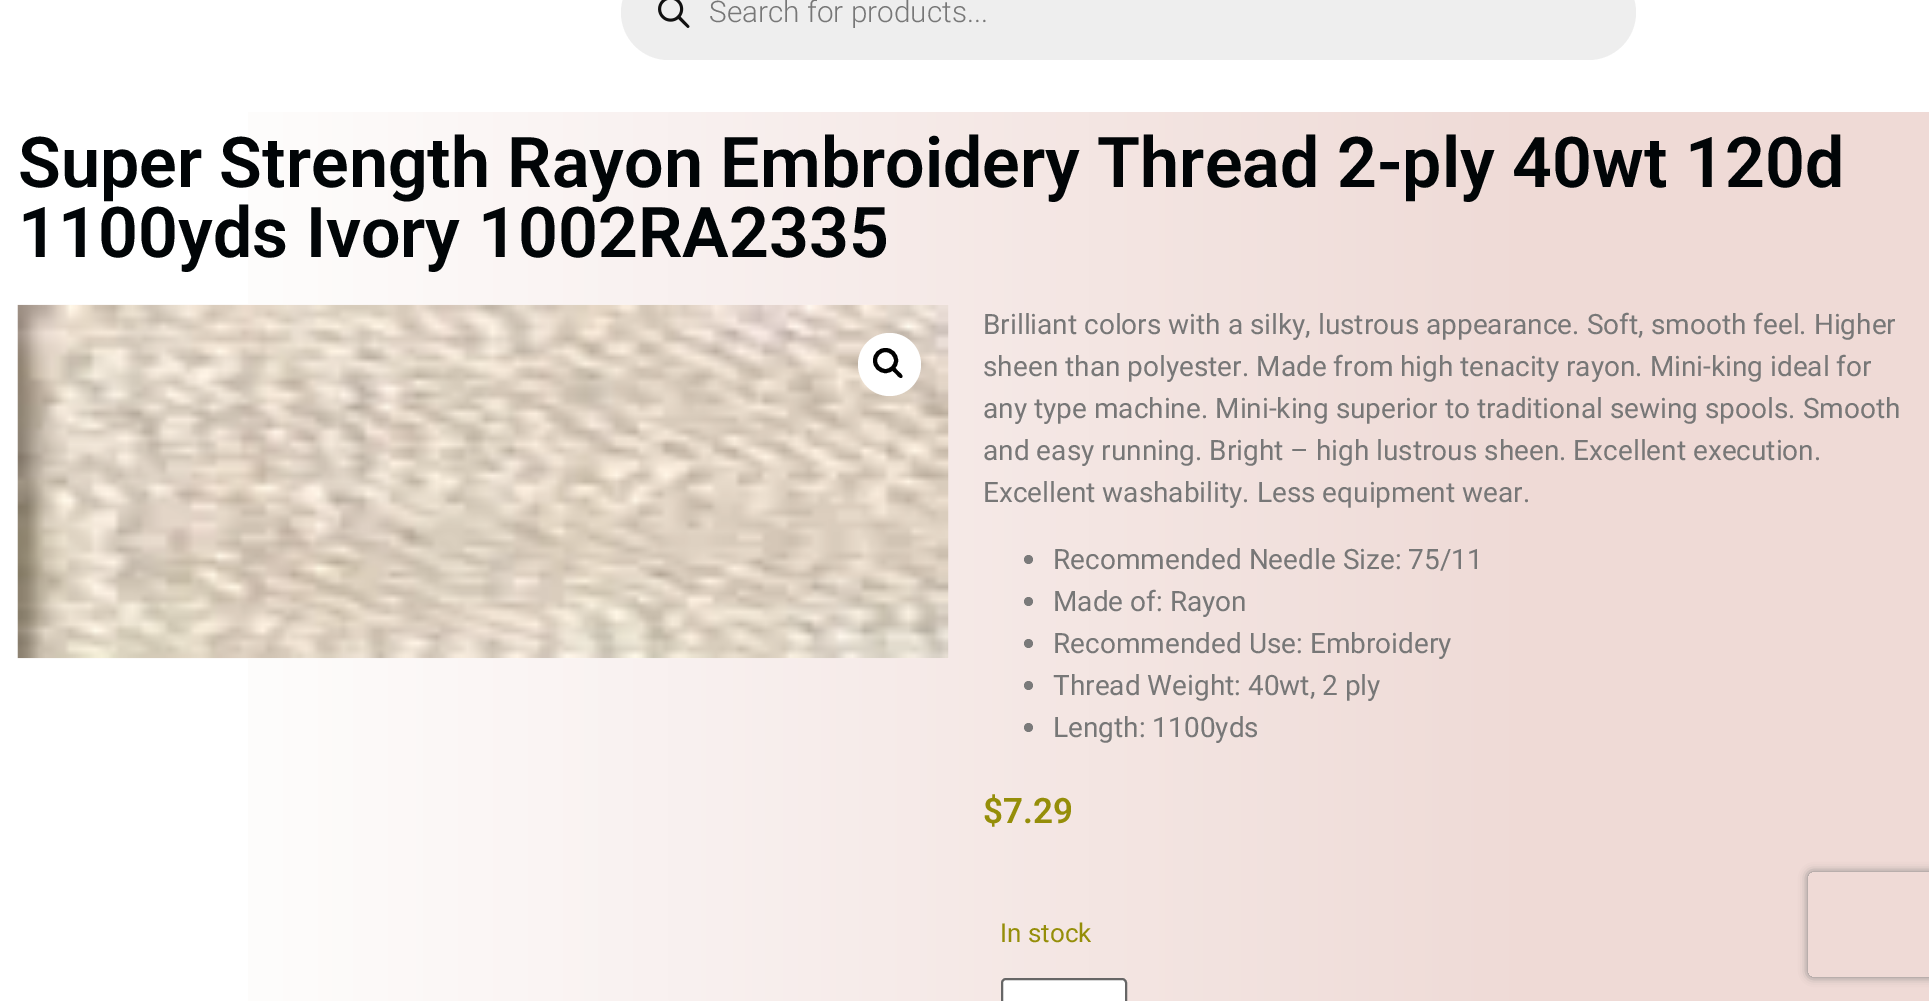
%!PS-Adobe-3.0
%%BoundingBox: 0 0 1929 1001
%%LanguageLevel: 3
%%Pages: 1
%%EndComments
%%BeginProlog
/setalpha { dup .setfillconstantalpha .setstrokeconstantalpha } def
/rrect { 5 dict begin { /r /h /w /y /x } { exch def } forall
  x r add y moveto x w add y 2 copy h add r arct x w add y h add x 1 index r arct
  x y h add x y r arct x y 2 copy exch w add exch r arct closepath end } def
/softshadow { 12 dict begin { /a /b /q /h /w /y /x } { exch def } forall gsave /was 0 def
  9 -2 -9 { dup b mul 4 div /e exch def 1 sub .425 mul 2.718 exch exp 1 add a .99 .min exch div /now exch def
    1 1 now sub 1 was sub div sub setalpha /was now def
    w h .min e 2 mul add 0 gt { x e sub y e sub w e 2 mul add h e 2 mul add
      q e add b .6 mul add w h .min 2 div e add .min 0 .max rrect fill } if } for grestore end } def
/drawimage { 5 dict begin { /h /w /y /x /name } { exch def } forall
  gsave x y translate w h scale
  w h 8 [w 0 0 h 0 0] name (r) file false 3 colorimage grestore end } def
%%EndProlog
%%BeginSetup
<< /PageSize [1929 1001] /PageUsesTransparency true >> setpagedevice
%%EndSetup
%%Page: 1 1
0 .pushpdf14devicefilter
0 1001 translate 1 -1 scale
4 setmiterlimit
1 setgray
0 0 1929 1001 rectfill
gsave newpath 248 112 moveto 1929 112 lineto 1929 1001 lineto 248 1001 lineto closepath clip newpath
<< /ShadingType 2 /ColorSpace /DeviceRGB /Coords [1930 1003 0 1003] /Extend [true true] /Function << /FunctionType 3 /Domain [0 1] /Functions [<< /FunctionType 2 /Domain [0 1] /C0 [0.937 0.855 0.839] /C1 [0.937 0.855 0.839] /N 1 >> << /FunctionType 2 /Domain [0 1] /C0 [0.937 0.855 0.839] /C1 [0.996 0.992 0.992] /N 1 >> << /FunctionType 2 /Domain [0 1] /C0 [0.996 0.992 0.992] /C1 [0.996 0.992 0.992] /N 1 >>] /Bounds [0.2 0.88] /Encode [0 1 0 1 0 1] >> >> shfill grestore
0.933 setgray
621 -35 1015 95 47.5 rrect fill
(images/1.raw) 658 0 32 28 drawimage
(images/2.raw) 17 304 932 355 drawimage
1 setgray
newpath 889.5 364.5 31.5 0 360 arc closepath fill
0 setgray
4 setlinewidth
newpath 885.5 360.5 10.5 0 360 arc closepath stroke
newpath 892 367.5 moveto 894 365.5 897 370 898 371 curveto 899 372 904 375.5 902 377.5 curveto 900 379.5 896.5 374.5 895.5 373.5 curveto 894.5 372.5 890 369.5 892 367.5 curveto closepath fill
0.478 setgray
newpath 1028.5 559.5 4.5 0 360 arc closepath fill
newpath 1028.5 601.5 4.5 0 360 arc closepath fill
newpath 1028.5 643.5 4.5 0 360 arc closepath fill
newpath 1028.5 685.5 4.5 0 360 arc closepath fill
newpath 1028.5 727.5 4.5 0 360 arc closepath fill
1 setgray
1002 979 124 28 4 rrect gsave fill grestore
0.4 setgray
2 setlinewidth
stroke
gsave
newpath 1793 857 moveto 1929 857 lineto 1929 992 lineto 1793 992 lineto closepath 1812 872 moveto 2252 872 lineto 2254 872 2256 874 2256 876 curveto 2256 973 lineto 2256 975 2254 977 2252 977 curveto 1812 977 lineto 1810 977 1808 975 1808 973 curveto 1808 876 lineto 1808 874 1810 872 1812 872 curveto closepath eoclip newpath
0.502 setgray
1808 872 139 105 4 4.5 1 softshadow
grestore
/Roboto-Light [29.75 0 0 -29.75 0 0] selectfont
0.467 setgray
709 22 moveto (Search for products...) show
/Roboto-SemiBold [70 0 0 -70 0 0] selectfont
0.004 0.02 0.027 setrgbcolor
18 187 moveto (Super Strength Rayon Embroidery Thread 2-ply 40wt 120d) show
18 257 moveto (1100yds Ivory 1002RA2335) show
/Roboto-Regular [28 0 0 -28 0 0] selectfont
0.467 setgray
983 334 moveto (Brilliant colors with a silky, lustrous appearance. Soft, smooth feel. Higher) show
983 376 moveto (sheen than polyester. Made from high tenacity rayon. Mini-king ideal for) show
983 418 moveto (any type machine. Mini-king superior to traditional sewing spools. Smooth) show
983 460 moveto (and easy running. Bright – high lustrous sheen. Excellent execution.) show
983 502 moveto (Excellent washability. Less equipment wear.) show
1053 569 moveto (Recommended Needle Size: 75/11) show
1053 611 moveto (Made of: Rayon) show
1053 653 moveto (Recommended Use: Embroidery) show
1053 695 moveto (Thread Weight: 40wt, 2 ply) show
1053 737 moveto (Length: 1100yds) show
/Roboto-SemiBold [35 0 0 -35 0 0] selectfont
0.584 0.557 0.035 setrgbcolor
983 823 moveto ($7.29) show
/Roboto-Regular [26 0 0 -26 0 0] selectfont
1000 942 moveto (In stock) show
.poppdf14devicefilter showpage
%%EOF
